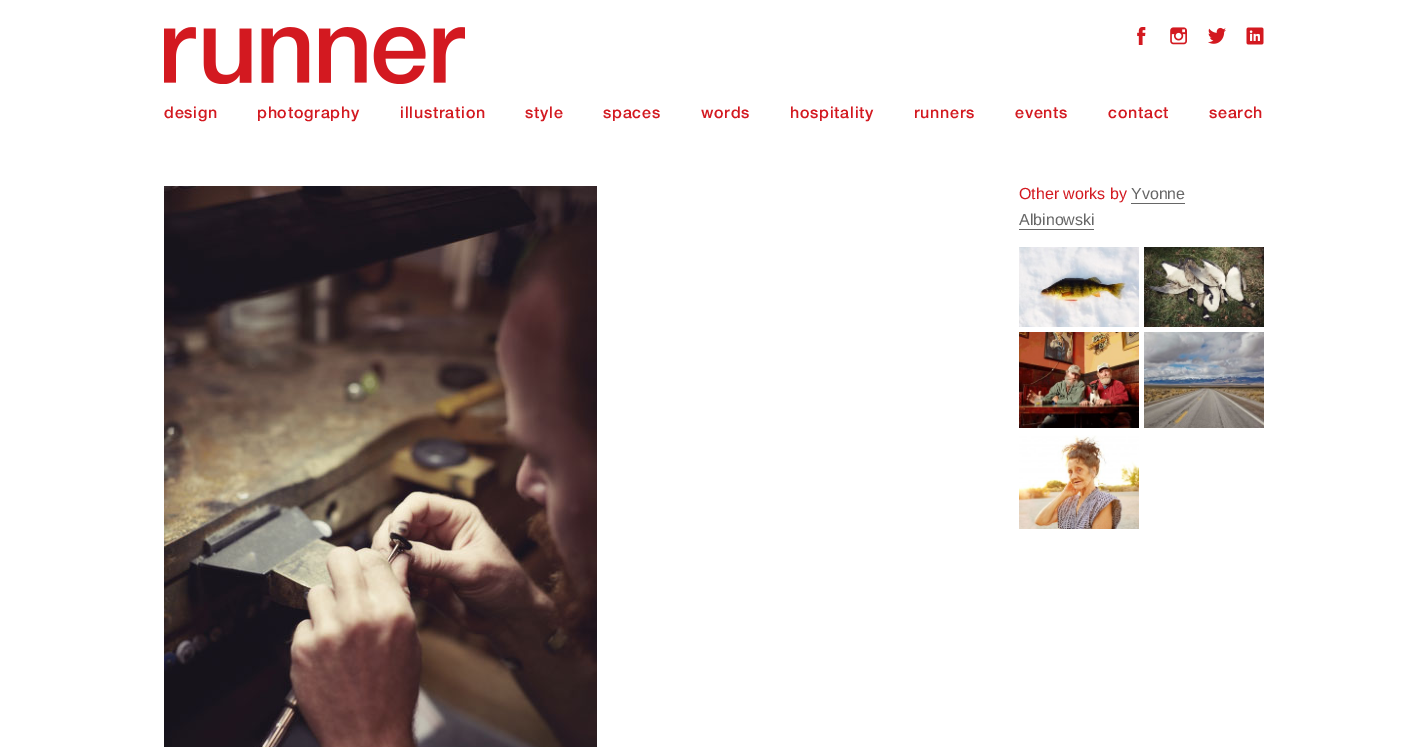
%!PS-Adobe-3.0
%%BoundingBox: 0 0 1427 747
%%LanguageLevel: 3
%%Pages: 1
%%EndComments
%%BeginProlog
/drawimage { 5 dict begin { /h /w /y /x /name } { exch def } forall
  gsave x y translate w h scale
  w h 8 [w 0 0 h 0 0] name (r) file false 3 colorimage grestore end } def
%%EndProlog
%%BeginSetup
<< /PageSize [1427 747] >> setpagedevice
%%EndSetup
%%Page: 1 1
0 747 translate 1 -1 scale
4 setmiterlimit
1 setgray
0 0 1427 747 rectfill
(images/1.raw) 164 27 301 57 drawimage
(images/2.raw) 1137 27 9 18 drawimage
(images/3.raw) 1170 27 17 18 drawimage
(images/4.raw) 1208 27 18 17 drawimage
(images/5.raw) 1246 27 18 18 drawimage
(images/6.raw) 164 186 433 561 drawimage
0.4 setgray
1131 203 54 1 rectfill
1019 229 75 1 rectfill
(images/7.raw) 1019 247 120 80 drawimage
(images/8.raw) 1019 332 120 96 drawimage
(images/9.raw) 1019 435 120 94 drawimage
(images/10.raw) 1144 247 120 80 drawimage
(images/11.raw) 1144 332 120 96 drawimage
/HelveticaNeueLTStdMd-Medium [16 0 0 -16 0 0] selectfont
0.827 0.098 0.125 setrgbcolor
164 118 moveto 0.75 0 (design) ashow
257 118 moveto 0.75 0 (photography) ashow
400 118 moveto 0.75 0 (illustration) ashow
525 118 moveto 0.75 0 (style) ashow
603 118 moveto 0.75 0 (spaces) ashow
701 118 moveto 0.75 0 (words) ashow
790 118 moveto 0.75 0 (hospitality) ashow
914 118 moveto 0.75 0 (runners) ashow
1015 118 moveto 0.75 0 (events) ashow
1108 118 moveto 0.75 0 (contact) ashow
1209 118 moveto 0.75 0 (search) ashow
/LiberationSans-Regular [16 0 0 -16 0 0] selectfont
1019 199 moveto (Other works by) show
0.4 setgray
1131 199 moveto (Yvonne) show
1019 225 moveto (Albinowski) show
showpage
%%EOF
